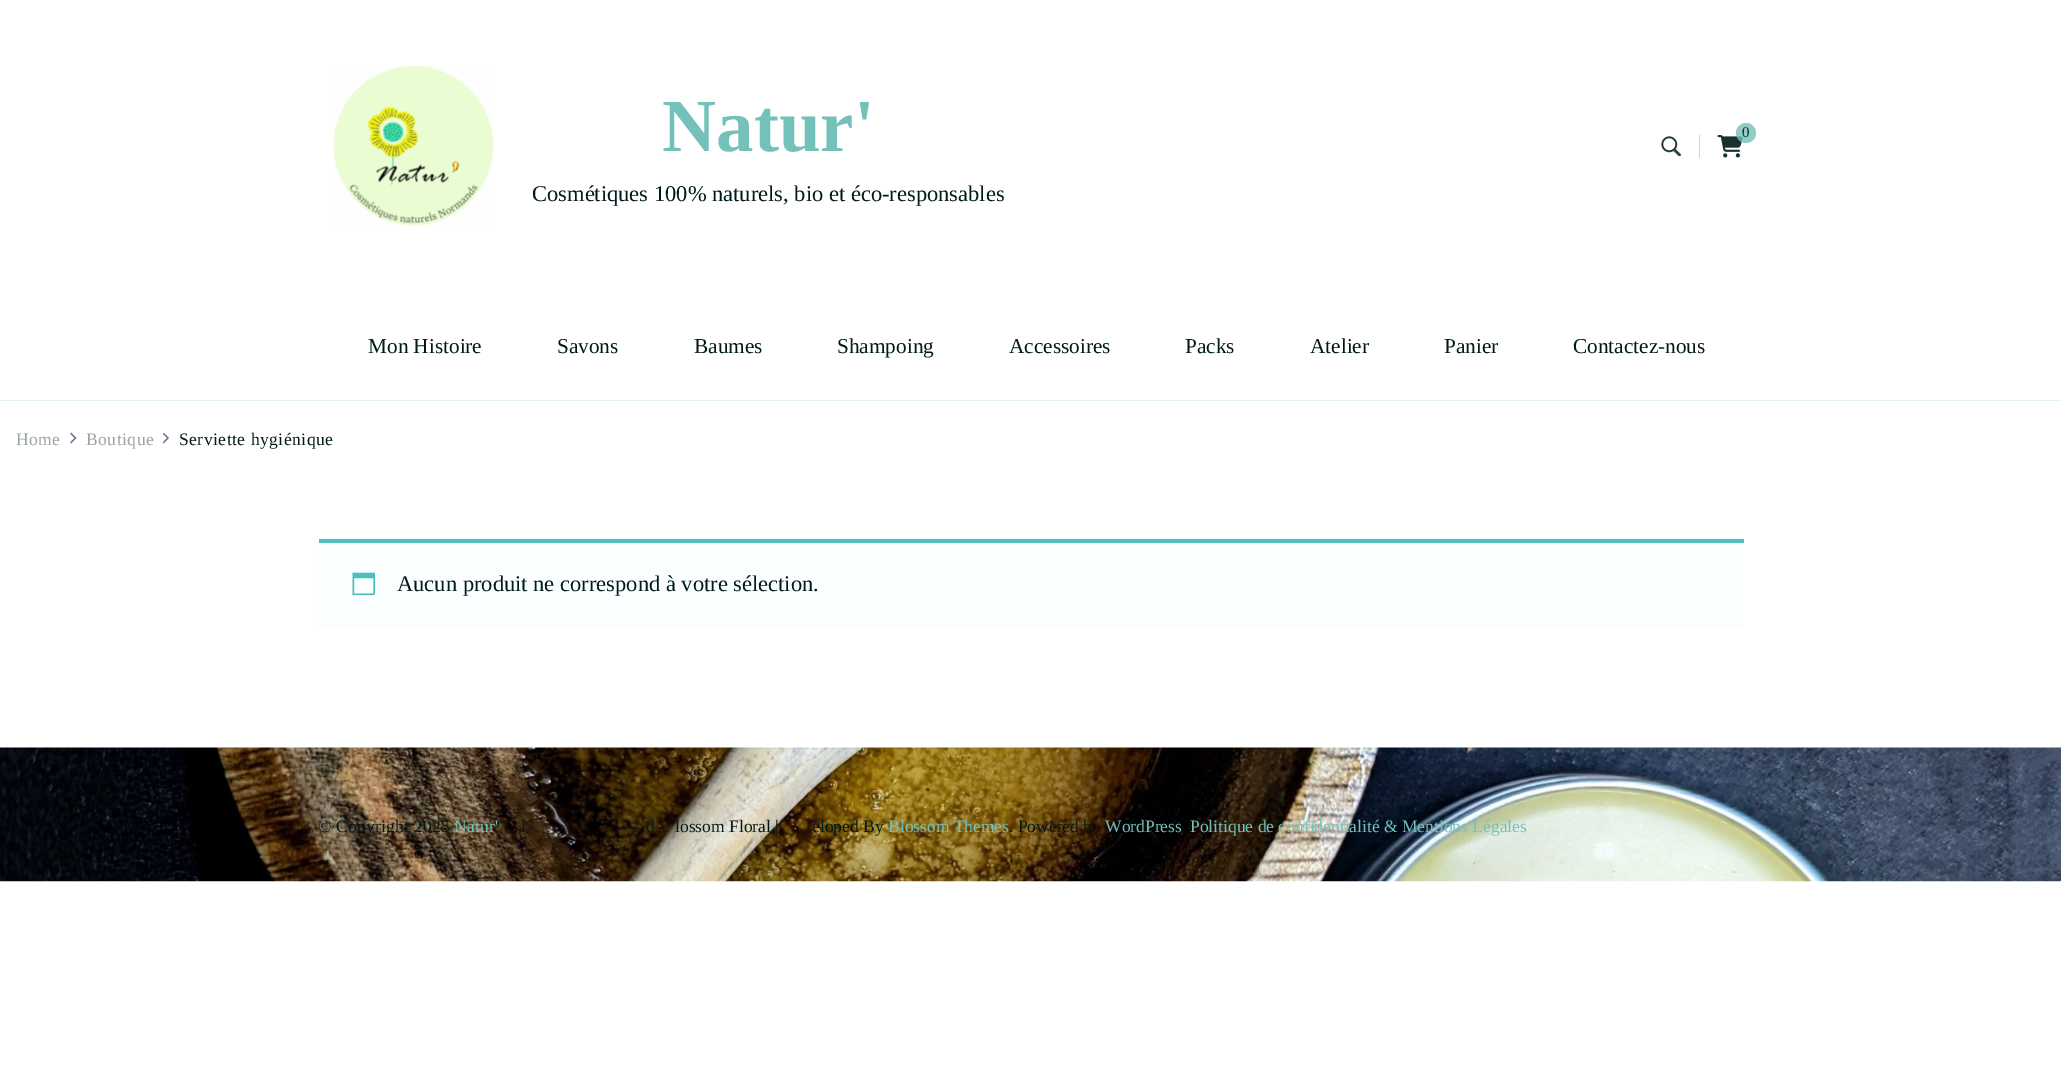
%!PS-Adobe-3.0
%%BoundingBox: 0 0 2061 1067
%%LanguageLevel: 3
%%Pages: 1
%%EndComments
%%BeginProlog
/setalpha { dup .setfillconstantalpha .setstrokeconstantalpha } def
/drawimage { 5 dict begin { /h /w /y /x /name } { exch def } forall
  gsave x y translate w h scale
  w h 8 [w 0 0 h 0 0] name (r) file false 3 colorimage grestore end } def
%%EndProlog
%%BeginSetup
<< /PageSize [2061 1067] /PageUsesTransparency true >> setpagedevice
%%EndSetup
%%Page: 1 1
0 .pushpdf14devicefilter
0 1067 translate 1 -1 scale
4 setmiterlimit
1 setgray
0 0 2061 1067 rectfill
(images/1.raw) 333 65 161 161 drawimage
0.729 0.878 0.867 setrgbcolor
1699 135 1 23 rectfill
(images/2.raw) 1717 135 26 23 drawimage
0.8 setalpha
0.455 0.757 0.729 setrgbcolor
newpath 1746 133 10 0 360 arc closepath fill
1 setalpha
(images/3.raw) 1661 136 20 20 drawimage
0.89 0.953 0.945 setrgbcolor
0 400 2061 1 rectfill
0.49 0.416 0.569 setrgbcolor
1.3 setlinewidth
1 setlinecap
newpath 71 433.5 moveto 75.5 438 lineto 71 442.5 lineto stroke
gsave
163 433 6 11 rectclip
newpath 163.5 433.5 moveto 168 438 lineto 163.5 442.5 lineto stroke
grestore
0.98 0.996 0.996 setrgbcolor
319 543 1425 85 rectfill
0.298 0.749 0.749 setrgbcolor
319 539 1425 4 rectfill
(images/4.raw) 352 572 23 24 drawimage
(images/5.raw) 0 747 2061 135 drawimage
0.05 setalpha
0 0.102 0.102 setrgbcolor
319 748 1425 1 rectfill
/LiberationSerif-Bold [75 0 0 -75 0 0] selectfont
1 setalpha
0.455 0.757 0.729 setrgbcolor
662 151 moveto (Natur') show
/LiberationSerif-Regular [22.5 0 0 -22.5 0 0] selectfont
0 0.102 0.102 setrgbcolor
532 201 moveto (Cosmétiques 100% naturels, bio et éco-responsables) show
/LiberationSerif-Regular [15 0 0 -15 0 0] selectfont
0.055 0.173 0.169 setrgbcolor
1742 137 moveto (0) show
/LiberationSerif-Regular [21.25 0 0 -21.25 0 0] selectfont
0 0.102 0.102 setrgbcolor
368 353 moveto (Mon Histoire) show
557 353 moveto (Savons) show
694 353 moveto (Baumes) show
837 353 moveto (Shampoing) show
1009 353 moveto (Accessoires) show
1185 353 moveto (Packs) show
1310 353 moveto (Atelier) show
1444 353 moveto (Panier) show
1573 353 moveto (Contactez-nous) show
/LiberationSerif-Regular [17.5 0 0 -17.5 0 0] selectfont
0.6 0.639 0.639 setrgbcolor
16 445 moveto 0.5 0 (Home) ashow
86 445 moveto 0.5 0 (Boutique) ashow
0 0.102 0.102 setrgbcolor
179 445 moveto 0.5 0 (Serviette hygiénique) ashow
/LiberationSerif-Regular [22.5 0 0 -22.5 0 0] selectfont
397 591 moveto (Aucun produit ne correspond à votre sélection.) show
/LiberationSerif-Regular [17.5 0 0 -17.5 0 0] selectfont
318 832 moveto 0.25 0 (© Copyright 2025) ashow
0.455 0.757 0.729 setrgbcolor
454 832 moveto 0.25 0 (Natur') ashow
0 0.102 0.102 setrgbcolor
521 832 moveto 0.25 0 (l) ashow
646 832 moveto 0.25 0 (d.) ashow
675 832 moveto (lossom Floral |) show
812 832 moveto (eloped By) show
0.455 0.757 0.729 setrgbcolor
888 832 moveto (Blossom Themes) show
0 0.102 0.102 setrgbcolor
1009 832 moveto (. Powered b) show
0.455 0.757 0.729 setrgbcolor
1105 832 moveto (WordPress) show
1190 832 moveto (Politique de confidentialité & Mentions Légales) show
.poppdf14devicefilter showpage
%%EOF
